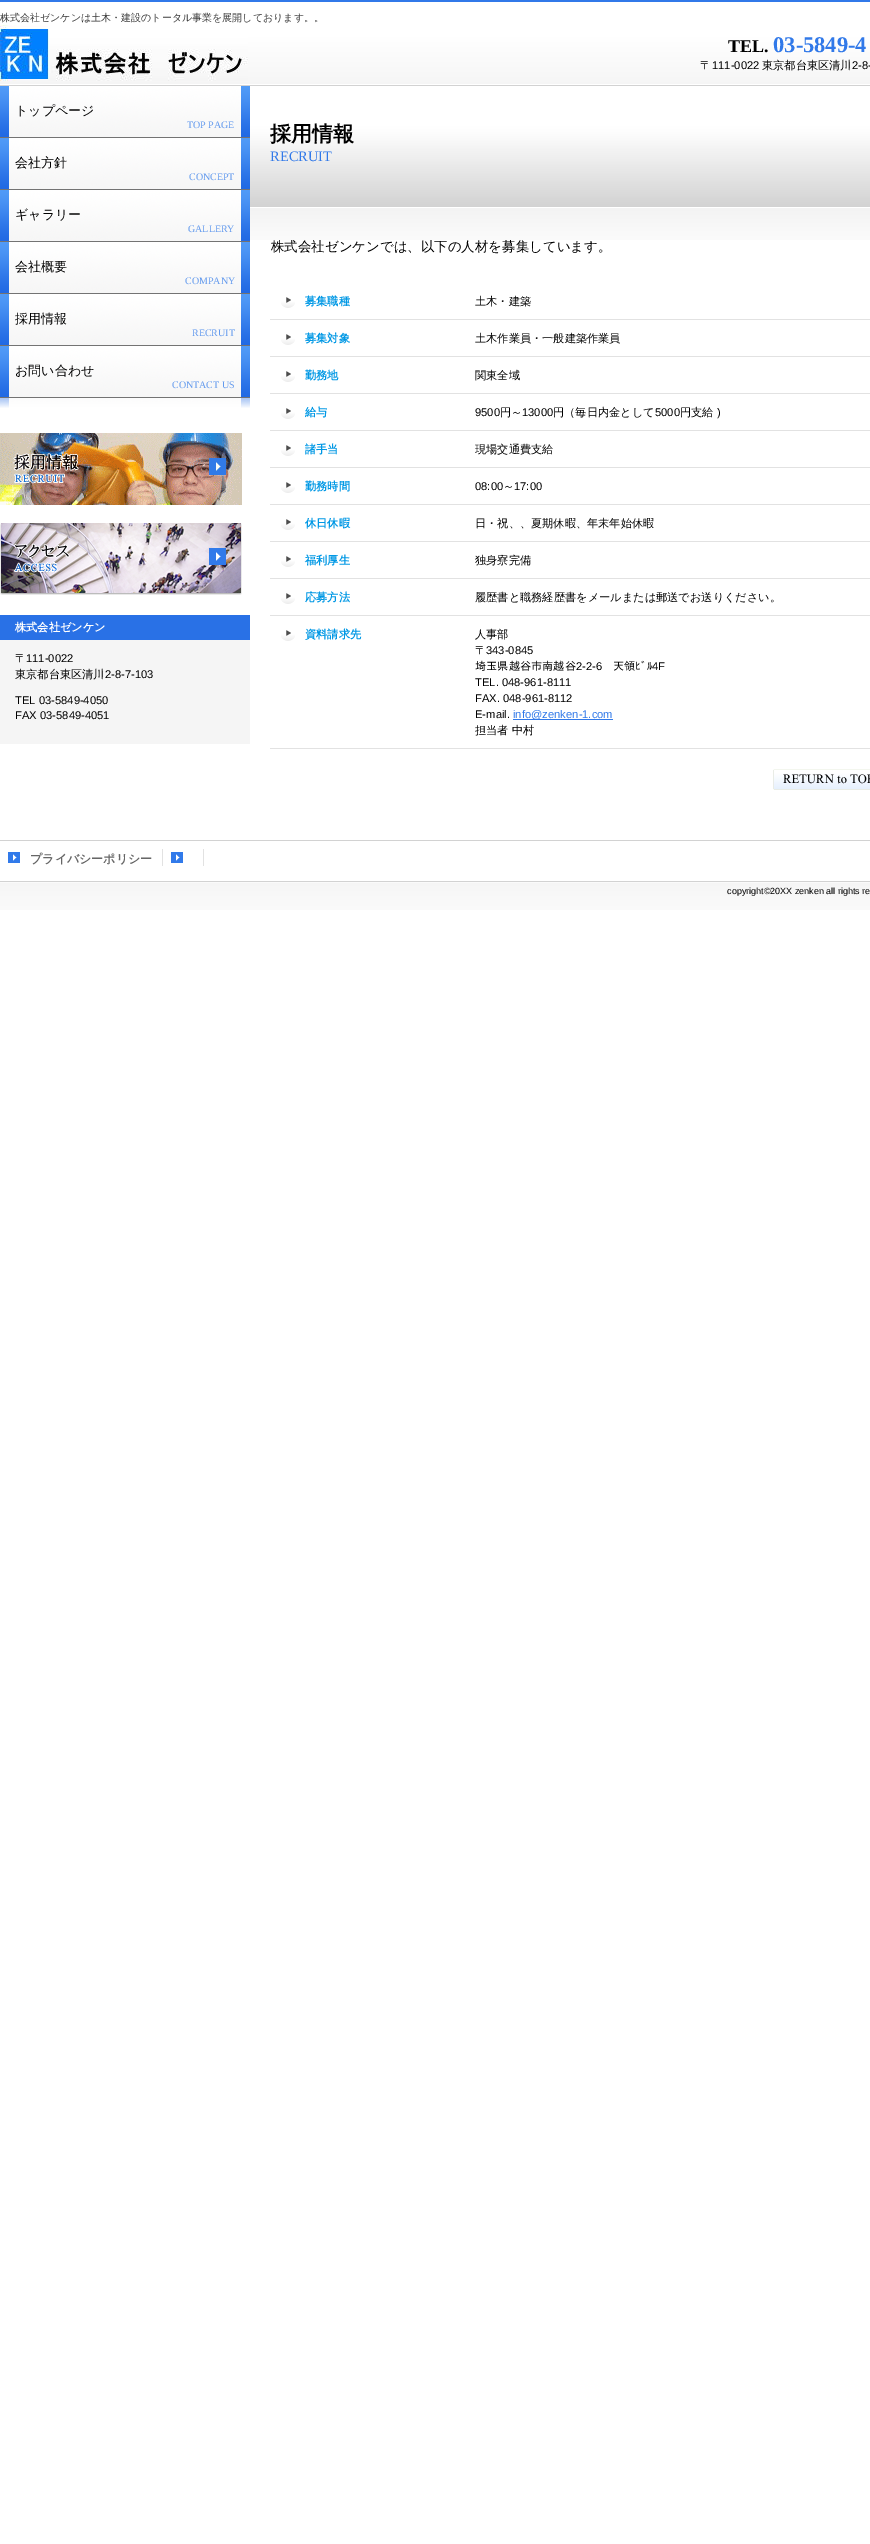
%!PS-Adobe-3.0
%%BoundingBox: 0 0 870 2544
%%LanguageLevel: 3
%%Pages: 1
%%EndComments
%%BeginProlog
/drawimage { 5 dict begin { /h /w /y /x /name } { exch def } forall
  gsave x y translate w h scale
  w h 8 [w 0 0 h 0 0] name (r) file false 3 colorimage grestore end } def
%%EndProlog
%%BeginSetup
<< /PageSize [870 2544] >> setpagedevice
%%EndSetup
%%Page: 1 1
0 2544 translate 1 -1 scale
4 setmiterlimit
1 setgray
0 0 870 2544 rectfill
(images/1.raw) 0 0 870 240 drawimage
(images/2.raw) 0 840 870 70 drawimage
(images/3.raw) 0 25 248 56 drawimage
(images/4.raw) 0 398 250 10 drawimage
(images/5.raw) 0 86 250 51 drawimage
0.451 setgray
0 137 250 1 rectfill
(images/5.raw) 0 138 250 51 drawimage
0 189 250 1 rectfill
(images/5.raw) 0 190 250 51 drawimage
0 241 250 1 rectfill
(images/5.raw) 0 242 250 51 drawimage
0 293 250 1 rectfill
(images/5.raw) 0 294 250 51 drawimage
0 345 250 1 rectfill
0 397 250 1 rectfill
(images/5.raw) 0 346 250 51 drawimage
(images/6.raw) 281 297 14 11 drawimage
0.886 setgray
270 319 600 1 rectfill
(images/6.raw) 281 334 14 11 drawimage
270 356 600 1 rectfill
(images/6.raw) 281 371 14 11 drawimage
270 393 600 1 rectfill
(images/6.raw) 281 408 14 11 drawimage
270 430 600 1 rectfill
(images/6.raw) 281 445 14 11 drawimage
270 467 600 1 rectfill
(images/6.raw) 281 482 14 11 drawimage
270 504 600 1 rectfill
(images/6.raw) 281 519 14 11 drawimage
270 541 600 1 rectfill
(images/6.raw) 281 556 14 11 drawimage
270 578 600 1 rectfill
(images/6.raw) 281 593 14 11 drawimage
270 615 600 1 rectfill
(images/6.raw) 281 630 14 11 drawimage
270 748 600 1 rectfill
0.192 0.475 0.914 setrgbcolor
513 719 100 1 rectfill
(images/7.raw) 773 769 97 21 drawimage
(images/8.raw) 0 433 242 72 drawimage
(images/9.raw) 0 523 242 72 drawimage
0.961 setgray
0 640 250 104 rectfill
0.161 0.443 0.902 setrgbcolor
0 615 250 25 rectfill
(images/10.raw) 8 852 12 11 drawimage
0.886 setgray
162 849 1 17 rectfill
(images/10.raw) 171 852 12 11 drawimage
203 849 1 17 rectfill
/WenQuanYiZenHei-Medium [10 0 0 -10 0 0] selectfont
0.224 setgray
0 21 moveto (株式会社ゼンケンは土木・建設のトータル事業を展開しております。。) show
/LiberationSerif-Bold [18 0 0 -18 0 0] selectfont
0 setgray
728 52 moveto (TEL.) show
/LiberationSerif-Bold [22.5 0 0 -22.5 0 0] selectfont
0.192 0.475 0.914 setrgbcolor
773 52 moveto (03-5849-4) show
/WenQuanYiZenHei-Medium [11.2 0 0 -11.2 0 0] selectfont
0 setgray
700 69 moveto (〒) show
/LiberationSans-Regular [11.2 0 0 -11.2 0 0] selectfont
712 69 moveto (111-0022) show
/WenQuanYiZenHei-Medium [11.2 0 0 -11.2 0 0] selectfont
762 69 moveto (東京都台東区清川) show
/LiberationSans-Regular [11.2 0 0 -11.2 0 0] selectfont
852 69 moveto (2-8-) show
/WenQuanYiZenHei-Medium [13 0 0 -13 0 0] selectfont
15 115 moveto (トップページ) show
/LiberationSerif-Regular [10 0 0 -10 0 0] selectfont
0.38 0.6 0.933 setrgbcolor
187 128 moveto (TOP PAGE) show
/WenQuanYiZenHei-Medium [13 0 0 -13 0 0] selectfont
0 setgray
15 167 moveto (会社方針) show
/LiberationSerif-Regular [10 0 0 -10 0 0] selectfont
0.38 0.6 0.933 setrgbcolor
189 180 moveto (CONCEPT) show
/WenQuanYiZenHei-Medium [13 0 0 -13 0 0] selectfont
0 setgray
15 219 moveto (ギャラリー) show
/LiberationSerif-Regular [10 0 0 -10 0 0] selectfont
0.38 0.6 0.933 setrgbcolor
188 232 moveto (GALLERY) show
/WenQuanYiZenHei-Medium [13 0 0 -13 0 0] selectfont
0 setgray
15 271 moveto (会社概要) show
/LiberationSerif-Regular [10 0 0 -10 0 0] selectfont
0.38 0.6 0.933 setrgbcolor
185 284 moveto (COMPANY) show
/WenQuanYiZenHei-Medium [13 0 0 -13 0 0] selectfont
0 setgray
15 323 moveto (採用情報) show
/LiberationSerif-Regular [10 0 0 -10 0 0] selectfont
0.38 0.6 0.933 setrgbcolor
192 336 moveto (RECRUIT) show
/WenQuanYiZenHei-Medium [13 0 0 -13 0 0] selectfont
0 setgray
15 375 moveto (お問い合わせ) show
/LiberationSerif-Regular [10 0 0 -10 0 0] selectfont
0.38 0.6 0.933 setrgbcolor
172 388 moveto (CONTACT US) show
/WenQuanYiZenHei-Bold [21 0 0 -21 0 0] selectfont
0 setgray
270 141 moveto (採用情報) show
/LiberationSerif-Regular [14.5 0 0 -14.5 0 0] selectfont
0.192 0.475 0.914 setrgbcolor
270 161 moveto (RECRUIT) show
/WenQuanYiZenHei-Medium [13.45 0 0 -13.45 0 0] selectfont
0 setgray
271 251 moveto (株式会社ゼンケンでは、以下の人材を募集しています。) show
/WenQuanYiZenHei-Bold [11.2 0 0 -11.2 0 0] selectfont
0 0.596 0.898 setrgbcolor
305 305 moveto (募集職種) show
/WenQuanYiZenHei-Medium [11.2 0 0 -11.2 0 0] selectfont
0 setgray
475 305 moveto (土木・建築) show
/WenQuanYiZenHei-Bold [11.2 0 0 -11.2 0 0] selectfont
0 0.596 0.898 setrgbcolor
305 342 moveto (募集対象) show
/WenQuanYiZenHei-Medium [11.2 0 0 -11.2 0 0] selectfont
0 setgray
475 342 moveto (土木作業員・一般建築作業員) show
/WenQuanYiZenHei-Bold [11.2 0 0 -11.2 0 0] selectfont
0 0.596 0.898 setrgbcolor
305 379 moveto (勤務地) show
/WenQuanYiZenHei-Medium [11.2 0 0 -11.2 0 0] selectfont
0 setgray
475 379 moveto (関東全域) show
/WenQuanYiZenHei-Bold [11.2 0 0 -11.2 0 0] selectfont
0 0.596 0.898 setrgbcolor
305 416 moveto (給与) show
/LiberationSans-Regular [11.2 0 0 -11.2 0 0] selectfont
0 setgray
475 416 moveto (9500) show
/WenQuanYiZenHei-Medium [11.2 0 0 -11.2 0 0] selectfont
500 416 moveto (円～) show
/LiberationSans-Regular [11.2 0 0 -11.2 0 0] selectfont
522 416 moveto (13000) show
/WenQuanYiZenHei-Medium [11.2 0 0 -11.2 0 0] selectfont
553 416 moveto (円（毎日内金として) show
/LiberationSans-Regular [11.2 0 0 -11.2 0 0] selectfont
655 416 moveto (5000) show
/WenQuanYiZenHei-Medium [11.2 0 0 -11.2 0 0] selectfont
680 416 moveto (円支給) show
/LiberationSans-Regular [11.2 0 0 -11.2 0 0] selectfont
717 416 moveto (\)) show
/WenQuanYiZenHei-Bold [11.2 0 0 -11.2 0 0] selectfont
0 0.596 0.898 setrgbcolor
305 453 moveto (諸手当) show
/WenQuanYiZenHei-Medium [11.2 0 0 -11.2 0 0] selectfont
0 setgray
475 453 moveto (現場交通費支給) show
/WenQuanYiZenHei-Bold [11.2 0 0 -11.2 0 0] selectfont
0 0.596 0.898 setrgbcolor
305 490 moveto (勤務時間) show
/LiberationSans-Regular [11.2 0 0 -11.2 0 0] selectfont
0 setgray
475 490 moveto (08:00) show
/WenQuanYiZenHei-Medium [11.2 0 0 -11.2 0 0] selectfont
503 490 moveto (～) show
/LiberationSans-Regular [11.2 0 0 -11.2 0 0] selectfont
514 490 moveto (17:00) show
/WenQuanYiZenHei-Bold [11.2 0 0 -11.2 0 0] selectfont
0 0.596 0.898 setrgbcolor
305 527 moveto (休日休暇) show
/WenQuanYiZenHei-Medium [11.2 0 0 -11.2 0 0] selectfont
0 setgray
475 527 moveto (日・祝、、夏期休暇、年末年始休暇) show
/WenQuanYiZenHei-Bold [11.2 0 0 -11.2 0 0] selectfont
0 0.596 0.898 setrgbcolor
305 564 moveto (福利厚生) show
/WenQuanYiZenHei-Medium [11.2 0 0 -11.2 0 0] selectfont
0 setgray
475 564 moveto (独身寮完備) show
/WenQuanYiZenHei-Bold [11.2 0 0 -11.2 0 0] selectfont
0 0.596 0.898 setrgbcolor
305 601 moveto (応募方法) show
/WenQuanYiZenHei-Medium [11.2 0 0 -11.2 0 0] selectfont
0 setgray
475 601 moveto (履歴書と職務経歴書をメールまたは郵送でお送りください。) show
/WenQuanYiZenHei-Bold [11.2 0 0 -11.2 0 0] selectfont
0 0.596 0.898 setrgbcolor
305 638 moveto (資料請求先) show
/WenQuanYiZenHei-Medium [11.2 0 0 -11.2 0 0] selectfont
0 setgray
475 638 moveto (人事部) show
475 654 moveto (〒) show
/LiberationSans-Regular [11.2 0 0 -11.2 0 0] selectfont
486 654 moveto (343-0845) show
/IPAPGothic-Regular [11.2 0 0 -11.2 0 0] selectfont
475 670 moveto (埼玉県越谷市南越谷) show
/LiberationSans-Regular [11.2 0 0 -11.2 0 0] selectfont
576 670 moveto (2-2-6) show
/IPAPGothic-Regular [11.2 0 0 -11.2 0 0] selectfont
613 670 moveto (天領ﾋﾞﾙ) show
/LiberationSans-Regular [11.2 0 0 -11.2 0 0] selectfont
652 670 moveto (4F) show
475 686 moveto (TEL. 048-961-8111) show
475 702 moveto (FAX. 048-961-8112) show
475 718 moveto (E-mail.) show
0.192 0.475 0.914 setrgbcolor
513 718 moveto (info@zenken-1.com) show
/WenQuanYiZenHei-Medium [11.2 0 0 -11.2 0 0] selectfont
0 setgray
475 734 moveto (担当者 中村) show
/WenQuanYiZenHei-Bold [11.2 0 0 -11.2 0 0] selectfont
1 setgray
15 631 moveto (株式会社ゼンケン) show
/WenQuanYiZenHei-Medium [11.2 0 0 -11.2 0 0] selectfont
0 setgray
15 662 moveto (〒) show
/LiberationSans-Regular [11.2 0 0 -11.2 0 0] selectfont
26 662 moveto (111-0022) show
/WenQuanYiZenHei-Medium [11.2 0 0 -11.2 0 0] selectfont
15 678 moveto (東京都台東区清川) show
/LiberationSans-Regular [11.2 0 0 -11.2 0 0] selectfont
105 678 moveto (2-8-7-103) show
15 704 moveto (TEL 03-5849-4050) show
15 719 moveto (FAX 03-5849-4051) show
/WenQuanYiZenHei-Bold [12 0 0 -12 0 0] selectfont
0.4 setgray
30 863 moveto (プライバシーポリシー) show
/LiberationSans-Regular [9 0 0 -9 0 0] selectfont
0 setgray
727 894 moveto (copyright©20XX zenken all rights re) show
showpage
%%EOF
